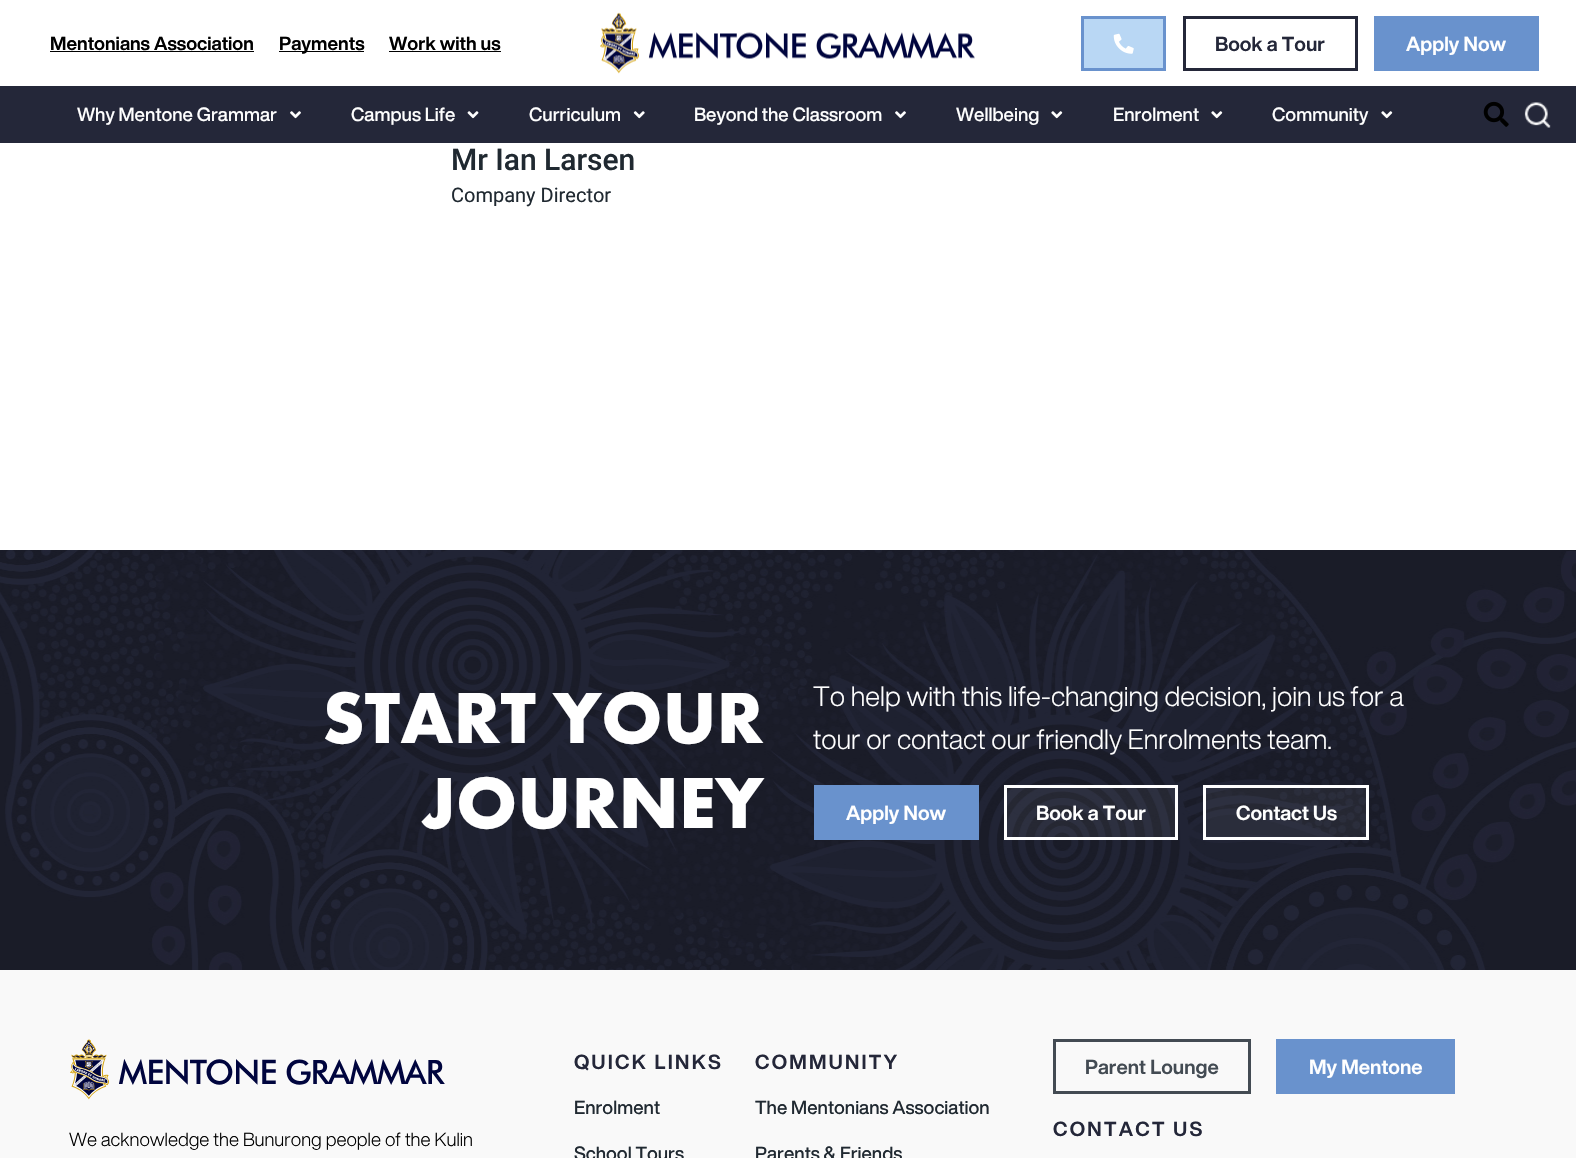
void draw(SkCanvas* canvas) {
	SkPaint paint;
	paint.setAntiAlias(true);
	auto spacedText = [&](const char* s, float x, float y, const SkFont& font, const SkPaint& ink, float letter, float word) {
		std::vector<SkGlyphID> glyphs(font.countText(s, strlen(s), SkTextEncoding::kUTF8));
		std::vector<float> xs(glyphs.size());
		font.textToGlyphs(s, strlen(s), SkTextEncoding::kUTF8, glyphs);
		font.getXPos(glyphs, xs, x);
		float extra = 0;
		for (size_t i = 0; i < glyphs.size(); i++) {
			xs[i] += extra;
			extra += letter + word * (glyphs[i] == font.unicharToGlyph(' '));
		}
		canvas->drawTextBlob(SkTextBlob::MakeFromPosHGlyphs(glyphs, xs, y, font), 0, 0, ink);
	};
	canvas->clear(0xffffffff);
	SkFont f1(fontMgr->matchFamilyStyle("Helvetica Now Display", SkFontStyle::Bold()), 18.75);
	f1.setSubpixel(true);
	paint.setColor(0xff000000);
	canvas->drawString("Mentonians Association", 50, 50, f1, paint);
	canvas->drawRect(SkRect::MakeXYWH(50, 51, 204, 1), paint);
	canvas->drawRect(SkRect::MakeXYWH(279, 51, 85, 1), paint);
	canvas->drawString("Payments", 279, 50, f1, paint);
	canvas->drawString("Work with us", 389, 50, f1, paint);
	canvas->drawRect(SkRect::MakeXYWH(389, 51, 112, 1), paint);
	canvas->drawImageRect(SkImages::DeferredFromEncodedData(SkData::MakeFromFileName("img1.png")), SkRect::MakeXYWH(600, 12, 375, 62), SkSamplingOptions());
	paint.setColor(0xffb9d7f4);
	canvas->drawRect(SkRect::MakeXYWH(1082.5, 17.5, 82, 52), paint);
	paint.setStroke(true);
	paint.setStrokeWidth(3);
	paint.setColor(0xff6992cd);
	canvas->drawRect(SkRect::MakeXYWH(1082.5, 17.5, 82, 52), paint);
	canvas->drawImageRect(SkImages::DeferredFromEncodedData(SkData::MakeFromFileName("img2.png")), SkRect::MakeXYWH(1113, 33, 21, 21), SkSamplingOptions());
	paint.setColor(0xff242739);
	canvas->drawRect(SkRect::MakeXYWH(1184.5, 17.5, 172, 52), paint);
	SkFont f2(fontMgr->matchFamilyStyle("Helvetica Now Display", SkFontStyle::Bold()), 20);
	f2.setSubpixel(true);
	paint.setStroke(false);
	canvas->drawString("Book a Tour", 1215, 51, f2, paint);
	paint.setColor(0xff6992cd);
	canvas->drawRect(SkRect::MakeXYWH(1374, 16, 165, 55), paint);
	paint.setColor(0xffffffff);
	canvas->drawString("Apply Now", 1406, 51, f2, paint);
	paint.setColor(0xff242739);
	canvas->drawRect(SkRect::MakeXYWH(0, 86, 1576, 57), paint);
	SkFont f3(fontMgr->matchFamilyStyle("Helvetica Now Display", SkFontStyle(500, SkFontStyle::kNormal_Width, SkFontStyle::kUpright_Slant)), 18.75);
	f3.setSubpixel(true);
	paint.setColor(0xffffffff);
	canvas->drawString("Why Mentone Grammar", 77, 121, f3, paint);
	canvas->drawImageRect(SkImages::DeferredFromEncodedData(SkData::MakeFromFileName("img3.png")), SkRect::MakeXYWH(290, 111, 11, 8), SkSamplingOptions());
	canvas->drawString("Campus Life", 351, 121, f3, paint);
	canvas->drawImageRect(SkImages::DeferredFromEncodedData(SkData::MakeFromFileName("img4.png")), SkRect::MakeXYWH(467, 111, 12, 8), SkSamplingOptions());
	canvas->drawString("Curriculum", 529, 121, f3, paint);
	canvas->drawImageRect(SkImages::DeferredFromEncodedData(SkData::MakeFromFileName("img5.png")), SkRect::MakeXYWH(633, 111, 12, 8), SkSamplingOptions());
	canvas->drawString("Beyond the Classroom", 694, 121, f3, paint);
	canvas->drawImageRect(SkImages::DeferredFromEncodedData(SkData::MakeFromFileName("img3.png")), SkRect::MakeXYWH(895, 111, 11, 8), SkSamplingOptions());
	canvas->drawString("Wellbeing", 956, 121, f3, paint);
	canvas->drawImageRect(SkImages::DeferredFromEncodedData(SkData::MakeFromFileName("img6.png")), SkRect::MakeXYWH(1051, 111, 12, 8), SkSamplingOptions());
	canvas->drawString("Enrolment", 1113, 121, f3, paint);
	canvas->drawImageRect(SkImages::DeferredFromEncodedData(SkData::MakeFromFileName("img6.png")), SkRect::MakeXYWH(1211, 111, 12, 8), SkSamplingOptions());
	canvas->drawString("Community", 1272, 121, f3, paint);
	canvas->drawImageRect(SkImages::DeferredFromEncodedData(SkData::MakeFromFileName("img6.png")), SkRect::MakeXYWH(1381, 111, 12, 8), SkSamplingOptions());
	canvas->drawImageRect(SkImages::DeferredFromEncodedData(SkData::MakeFromFileName("img7.png")), SkRect::MakeXYWH(1483, 101, 26, 26), SkSamplingOptions());
	canvas->drawImageRect(SkImages::DeferredFromEncodedData(SkData::MakeFromFileName("img8.png")), SkRect::MakeXYWH(1524, 102, 27, 26), SkSamplingOptions());
	SkFont f4(fontMgr->matchFamilyStyle("Roboto", SkFontStyle(500, SkFontStyle::kNormal_Width, SkFontStyle::kUpright_Slant)), 30);
	f4.setSubpixel(true);
	paint.setColor(0xff202931);
	canvas->drawString("Mr Ian Larsen", 451, 170, f4, paint);
	SkFont f5(fontMgr->matchFamilyStyle("Roboto", SkFontStyle::Normal()), 20);
	f5.setSubpixel(true);
	canvas->drawString("Company Director", 451, 202, f5, paint);
	canvas->drawImageRect(SkImages::DeferredFromEncodedData(SkData::MakeFromFileName("img9.png")), SkRect::MakeXYWH(0, 550, 1576, 420), SkSamplingOptions());
	SkFont f6(fontMgr->matchFamilyStyle("Futura PT", SkFontStyle::Bold()), 75);
	f6.setSubpixel(true);
	paint.setColor(0xffffffff);
	canvas->drawString("START YOUR", 322, 743, f6, paint);
	canvas->drawString("JOURNEY", 421, 828, f6, paint);
	SkFont f7(fontMgr->matchFamilyStyle("Helvetica Now Display", SkFontStyle(300, SkFontStyle::kNormal_Width, SkFontStyle::kUpright_Slant)), 27.5);
	f7.setSubpixel(true);
	canvas->drawString("To help with this life-changing decision, join us for a", 813, 706, f7, paint);
	canvas->drawString("tour or contact our friendly Enrolments team.", 813, 749, f7, paint);
	paint.setColor(0xff6992cd);
	canvas->drawRect(SkRect::MakeXYWH(814, 785, 165, 55), paint);
	paint.setColor(0xffffffff);
	canvas->drawString("Apply Now", 846, 820, f2, paint);
	paint.setColor(0x0dffffff);
	canvas->drawRect(SkRect::MakeXYWH(1005.5, 786.5, 171, 52), paint);
	paint.setStroke(true);
	paint.setColor(0xffffffff);
	canvas->drawRect(SkRect::MakeXYWH(1005.5, 786.5, 171, 52), paint);
	paint.setStroke(false);
	canvas->drawString("Book a Tour", 1036, 820, f2, paint);
	paint.setColor(0x0dffffff);
	canvas->drawRect(SkRect::MakeXYWH(1204.5, 786.5, 163, 52), paint);
	paint.setStroke(true);
	paint.setColor(0xffffffff);
	canvas->drawRect(SkRect::MakeXYWH(1204.5, 786.5, 163, 52), paint);
	paint.setStroke(false);
	canvas->drawString("Contact Us", 1236, 820, f2, paint);
	paint.setColor(0xfff9f9f9);
	canvas->drawRect(SkRect::MakeXYWH(0, 970, 1576, 188), paint);
	paint.setColor(0xff242739);
	spacedText("QUICK LINKS", 574, 1069, f2, paint, 2.25, 0);
	paint.setColor(0xff202931);
	canvas->drawString("Enrolment", 574, 1114, f3, paint);
	canvas->drawString("School Tours", 574, 1160, f3, paint);
	paint.setColor(0xff242739);
	spacedText("COMMUNITY", 755, 1069, f2, paint, 2.25, 0);
	paint.setColor(0xff202931);
	canvas->drawString("The Mentonians Association", 755, 1114, f3, paint);
	canvas->drawString("Parents & Friends", 755, 1160, f3, paint);
	paint.setStroke(true);
	paint.setColor(0xff434b53);
	canvas->drawRect(SkRect::MakeXYWH(1054.5, 1040.5, 195, 52), paint);
	paint.setStroke(false);
	canvas->drawString("Parent Lounge", 1085, 1074, f2, paint);
	paint.setColor(0xff6992cd);
	canvas->drawRect(SkRect::MakeXYWH(1276, 1039, 179, 55), paint);
	paint.setColor(0xffffffff);
	canvas->drawString("My Mentone", 1309, 1074, f2, paint);
	paint.setColor(0xff242739);
	spacedText("CONTACT US", 1053, 1136, f2, paint, 2.25, 0);
	canvas->drawImageRect(SkImages::DeferredFromEncodedData(SkData::MakeFromFileName("img10.png")), SkRect::MakeXYWH(70, 1039, 375, 61), SkSamplingOptions());
	SkFont f8(fontMgr->matchFamilyStyle("Helvetica Now Display", SkFontStyle(300, SkFontStyle::kNormal_Width, SkFontStyle::kUpright_Slant)), 18.75);
	f8.setSubpixel(true);
	paint.setColor(0xff000000);
	canvas->drawString("We acknowledge the Bunurong people of the Kulin", 69, 1146, f8, paint);
}
